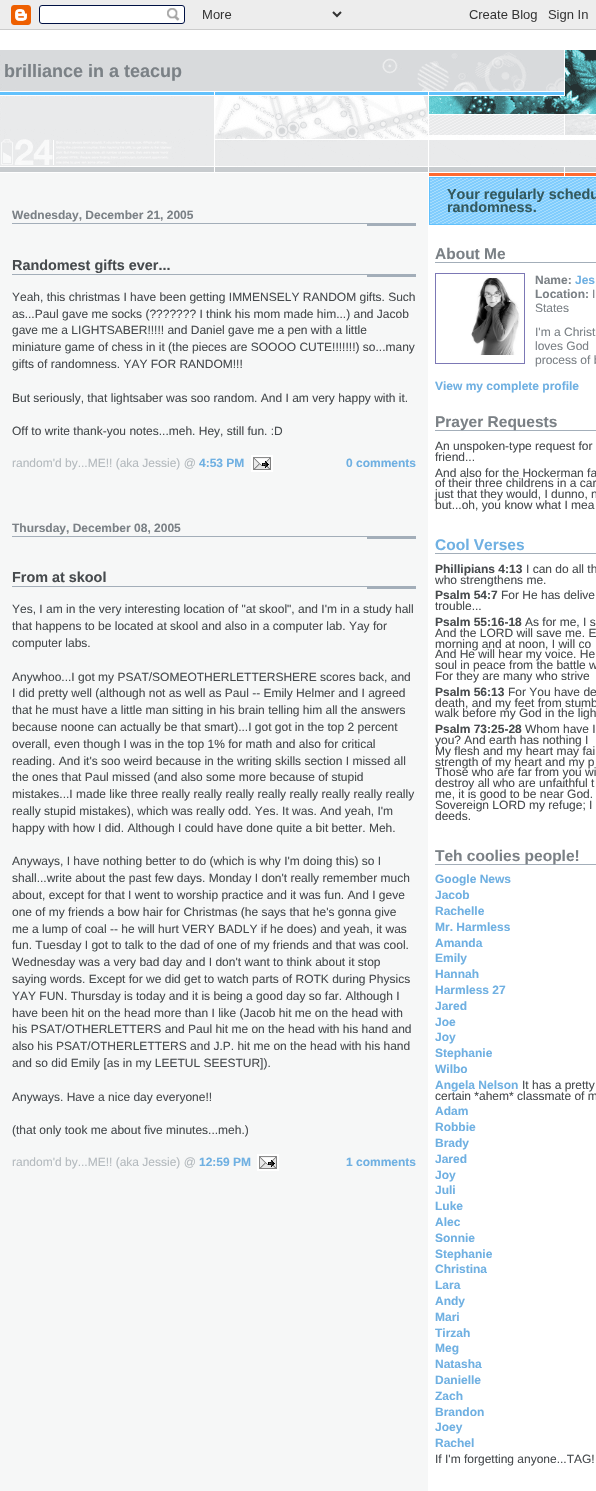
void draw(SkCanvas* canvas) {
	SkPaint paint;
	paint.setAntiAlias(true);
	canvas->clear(0xffffffff);
	canvas->drawImageRect(SkImages::DeferredFromEncodedData(SkData::MakeFromFileName("img1.png")), SkRect::MakeXYWH(0, 0, 596, 30), SkSamplingOptions());
	canvas->drawImageRect(SkImages::DeferredFromEncodedData(SkData::MakeFromFileName("img2.png")), SkRect::MakeXYWH(0, 173, 428, 1318), SkSamplingOptions());
	canvas->drawImageRect(SkImages::DeferredFromEncodedData(SkData::MakeFromFileName("img3.png")), SkRect::MakeXYWH(0, 50, 596, 122), SkSamplingOptions());
	SkFont f1(fontMgr->matchFamilyStyle("Liberation Sans", SkFontStyle::Bold()), 18);
	f1.setSubpixel(true);
	paint.setColor(0xff7b8186);
	canvas->drawString("brilliance in a teacup", 4, 77, f1, paint);
	canvas->drawImageRect(SkImages::DeferredFromEncodedData(SkData::MakeFromFileName("img4.png")), SkRect::MakeXYWH(12, 223, 404, 3), SkSamplingOptions());
	SkFont f2(fontMgr->matchFamilyStyle("Liberation Sans", SkFontStyle::Bold()), 12);
	f2.setSubpixel(true);
	canvas->drawString("Wednesday, December 21, 2005", 12, 219, f2, paint);
	canvas->drawImageRect(SkImages::DeferredFromEncodedData(SkData::MakeFromFileName("img4.png")), SkRect::MakeXYWH(12, 274, 404, 3), SkSamplingOptions());
	SkFont f3(fontMgr->matchFamilyStyle("Liberation Sans", SkFontStyle::Bold()), 14.4);
	f3.setSubpixel(true);
	paint.setColor(0xff474b4e);
	canvas->drawString("Randomest gifts ever...", 12, 270, f3, paint);
	SkFont f4(fontMgr->matchFamilyStyle("Liberation Sans", SkFontStyle::Normal()), 12);
	f4.setSubpixel(true);
	canvas->drawString("Yeah, this christmas I have been getting IMMENSELY RANDOM gifts. Such", 12, 301, f4, paint);
	canvas->drawString("as...Paul gave me socks (?\077?\077?\077? I think his mom made him...) and Jacob", 12, 318, f4, paint);
	canvas->drawString("gave me a LIGHTSABER!!!!! and Daniel gave me a pen with a little", 12, 334, f4, paint);
	canvas->drawString("miniature game of chess in it (the pieces are SOOOO CUTE!!!!!!!) so...many", 12, 351, f4, paint);
	canvas->drawString("gifts of randomness. YAY FOR RANDOM!!!", 12, 368, f4, paint);
	canvas->drawString("But seriously, that lightsaber was soo random. And I am very happy with it.", 12, 402, f4, paint);
	canvas->drawString("Off to write thank-you notes...meh. Hey, still fun. :D", 12, 435, f4, paint);
	paint.setColor(0xffffffff);
	canvas->drawRect(SkRect::MakeXYWH(251, 455, 22, 17), paint);
	paint.setColor(0xffb4babe);
	canvas->drawString("random'd by...ME!! (aka Jessie) @", 12, 467, f4, paint);
	paint.setColor(0xff6fb0e2);
	canvas->drawString("4:53 PM", 199, 467, f2, paint);
	canvas->drawImageRect(SkImages::DeferredFromEncodedData(SkData::MakeFromFileName("img5.png")), SkRect::MakeXYWH(253, 457, 18, 13), SkSamplingOptions());
	canvas->drawString("0 comments", 346, 467, f2, paint);
	canvas->drawImageRect(SkImages::DeferredFromEncodedData(SkData::MakeFromFileName("img4.png")), SkRect::MakeXYWH(12, 536, 404, 3), SkSamplingOptions());
	paint.setColor(0xff7b8186);
	canvas->drawString("Thursday, December 08, 2005", 12, 532, f2, paint);
	canvas->drawImageRect(SkImages::DeferredFromEncodedData(SkData::MakeFromFileName("img4.png")), SkRect::MakeXYWH(12, 586, 404, 3), SkSamplingOptions());
	paint.setColor(0xff474b4e);
	canvas->drawString("From at skool", 12, 582, f3, paint);
	canvas->drawString("Yes, I am in the very interesting location of \"at skool\", and I'm in a study hall", 12, 613, f4, paint);
	canvas->drawString("that happens to be located at skool and also in a computer lab. Yay for", 12, 630, f4, paint);
	canvas->drawString("computer labs.", 12, 647, f4, paint);
	canvas->drawString("Anywhoo...I got my PSAT/SOMEOTHERLETTERSHERE scores back, and", 12, 681, f4, paint);
	canvas->drawString("I did pretty well (although not as well as Paul -- Emily Helmer and I agreed", 12, 697, f4, paint);
	canvas->drawString("that he must have a little man sitting in his brain telling him all the answers", 12, 714, f4, paint);
	canvas->drawString("because noone can actually be that smart)...I got got in the top 2 percent", 12, 731, f4, paint);
	canvas->drawString("overall, even though I was in the top 1% for math and also for critical", 12, 748, f4, paint);
	canvas->drawString("reading. And it's soo weird because in the writing skills section I missed all", 12, 765, f4, paint);
	canvas->drawString("the ones that Paul missed (and also some more because of stupid", 12, 781, f4, paint);
	canvas->drawString("mistakes...I made like three really really really really really really really really", 12, 798, f4, paint);
	canvas->drawString("really stupid mistakes), which was really odd. Yes. It was. And yeah, I'm", 12, 815, f4, paint);
	canvas->drawString("happy with how I did. Although I could have done quite a bit better. Meh.", 12, 832, f4, paint);
	canvas->drawString("Anyways, I have nothing better to do (which is why I'm doing this) so I", 12, 865, f4, paint);
	canvas->drawString("shall...write about the past few days. Monday I don't really remember much", 12, 882, f4, paint);
	canvas->drawString("about, except for that I went to worship practice and it was fun. And I geve", 12, 899, f4, paint);
	canvas->drawString("one of my friends a bow hair for Christmas (he says that he's gonna give", 12, 916, f4, paint);
	canvas->drawString("me a lump of coal -- he will hurt VERY BADLY if he does) and yeah, it was", 12, 933, f4, paint);
	canvas->drawString("fun. Tuesday I got to talk to the dad of one of my friends and that was cool.", 12, 949, f4, paint);
	canvas->drawString("Wednesday was a very bad day and I don't want to think about it stop", 12, 966, f4, paint);
	canvas->drawString("saying words. Except for we did get to watch parts of ROTK during Physics", 12, 983, f4, paint);
	canvas->drawString("YAY FUN. Thursday is today and it is being a good day so far. Although I", 12, 1000, f4, paint);
	canvas->drawString("have been hit on the head more than I like (Jacob hit me on the head with", 12, 1017, f4, paint);
	canvas->drawString("his PSAT/OTHERLETTERS and Paul hit me on the head with his hand and", 12, 1033, f4, paint);
	canvas->drawString("also his PSAT/OTHERLETTERS and J.P. hit me on the head with his hand", 12, 1050, f4, paint);
	canvas->drawString("and so did Emily [as in my LEETUL SEESTUR]).", 12, 1067, f4, paint);
	canvas->drawString("Anyways. Have a nice day everyone!!", 12, 1101, f4, paint);
	canvas->drawString("(that only took me about five minutes...meh.)", 12, 1134, f4, paint);
	paint.setColor(0xffffffff);
	canvas->drawRect(SkRect::MakeXYWH(257, 1154, 22, 17), paint);
	paint.setColor(0xffb4babe);
	canvas->drawString("random'd by...ME!! (aka Jessie) @", 12, 1166, f4, paint);
	paint.setColor(0xff6fb0e2);
	canvas->drawString("12:59 PM", 199, 1166, f2, paint);
	canvas->drawImageRect(SkImages::DeferredFromEncodedData(SkData::MakeFromFileName("img5.png")), SkRect::MakeXYWH(259, 1156, 18, 13), SkSamplingOptions());
	canvas->drawString("1 comments", 346, 1166, f2, paint);
	canvas->drawImageRect(SkImages::DeferredFromEncodedData(SkData::MakeFromFileName("img6.png")), SkRect::MakeXYWH(429, 173, 167, 3), SkSamplingOptions());
	canvas->drawImageRect(SkImages::DeferredFromEncodedData(SkData::MakeFromFileName("img7.png")), SkRect::MakeXYWH(430, 178, 166, 46), SkSamplingOptions());
	paint.setStroke(true);
	paint.setStrokeWidth(1);
	paint.setColor(0xff62c1fc);
	canvas->drawRect(SkRect::MakeXYWH(429.5, 177.5, 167, 47), paint);
	paint.setStroke(false);
	paint.setColor(0xff33595e);
	canvas->drawString("Your regularly schedu", 447, 199, f3, paint);
	canvas->drawString("randomness.", 447, 212, f3, paint);
	paint.setColor(0xffa3aeb9);
	canvas->drawRect(SkRect::MakeXYWH(435, 262, 161, 1), paint);
	SkFont f5(fontMgr->matchFamilyStyle("Liberation Sans", SkFontStyle::Bold()), 15.5);
	f5.setSubpixel(true);
	paint.setColor(0xff7b8186);
	canvas->drawString("About Me", 435, 259, f5, paint);
	paint.setStroke(true);
	paint.setColor(0xff7c78b5);
	canvas->drawRect(SkRect::MakeXYWH(435.5, 273.5, 89, 90), paint);
	canvas->drawImageRect(SkImages::DeferredFromEncodedData(SkData::MakeFromFileName("img8.png")), SkRect::MakeXYWH(471, 278, 49, 77), SkSamplingOptions());
	paint.setStroke(false);
	paint.setColor(0xff7b8186);
	canvas->drawString("Name:", 535, 284, f2, paint);
	paint.setColor(0xff6fb0e2);
	canvas->drawString("Jes", 575, 284, f2, paint);
	paint.setColor(0xff7b8186);
	canvas->drawString("Location:", 535, 298, f2, paint);
	canvas->drawString("I", 592, 298, f4, paint);
	canvas->drawString("States", 535, 312, f4, paint);
	canvas->drawString("I'm a Christ", 535, 336, f4, paint);
	canvas->drawString("loves God", 535, 350, f4, paint);
	canvas->drawString("process of b", 535, 364, f4, paint);
	paint.setColor(0xff6fb0e2);
	canvas->drawString("View my complete profile", 435, 390, f2, paint);
	paint.setColor(0xffa3aeb9);
	canvas->drawRect(SkRect::MakeXYWH(435, 430, 161, 1), paint);
	paint.setColor(0xff7b8186);
	canvas->drawString("Prayer Requests", 435, 427, f5, paint);
	paint.setColor(0xff474b4e);
	canvas->drawString("An unspoken-type request for", 435, 450, f4, paint);
	canvas->drawString("friend...", 435, 461, f4, paint);
	canvas->drawString("And also for the Hockerman fa", 435, 477, f4, paint);
	canvas->drawString("of their three childrens in a car", 435, 487, f4, paint);
	canvas->drawString("just that they would, I dunno, n", 435, 498, f4, paint);
	canvas->drawString("but...oh, you know what I mea", 435, 509, f4, paint);
	paint.setColor(0xffa3aeb9);
	canvas->drawRect(SkRect::MakeXYWH(435, 553, 161, 1), paint);
	paint.setColor(0xff6fb0e2);
	canvas->drawString("Cool Verses", 435, 550, f5, paint);
	paint.setColor(0xff474b4e);
	canvas->drawString("Phillipians 4:13", 435, 573, f2, paint);
	canvas->drawString("I can do all th", 526, 573, f4, paint);
	canvas->drawString("who strengthens me.", 435, 584, f4, paint);
	canvas->drawString("Psalm 54:7", 435, 599, f2, paint);
	canvas->drawString("For He has delive", 501, 599, f4, paint);
	canvas->drawString("trouble...", 435, 610, f4, paint);
	canvas->drawString("Psalm 55:16-18", 435, 626, f2, paint);
	canvas->drawString("As for me, I s", 525, 626, f4, paint);
	canvas->drawString("And the LORD will save me. E", 435, 637, f4, paint);
	canvas->drawString("morning and at noon, I will co", 435, 648, f4, paint);
	canvas->drawString("And He will hear my voice. He", 435, 658, f4, paint);
	canvas->drawString("soul in peace from the battle w", 435, 669, f4, paint);
	canvas->drawString("For they are many who strive", 435, 680, f4, paint);
	canvas->drawString("Psalm 56:13", 435, 696, f2, paint);
	canvas->drawString("For You have de", 508, 696, f4, paint);
	canvas->drawString("death, and my feet from stumb", 435, 707, f4, paint);
	canvas->drawString("walk before my God in the ligh", 435, 717, f4, paint);
	canvas->drawString("Psalm 73:25-28", 435, 733, f2, paint);
	canvas->drawString("Whom have I", 525, 733, f4, paint);
	canvas->drawString("you? And earth has nothing I", 435, 744, f4, paint);
	canvas->drawString("My flesh and my heart may fai", 435, 755, f4, paint);
	canvas->drawString("strength of my heart and my p", 435, 766, f4, paint);
	canvas->drawString("Those who are far from you wi", 435, 776, f4, paint);
	canvas->drawString("destroy all who are unfaithful t", 435, 787, f4, paint);
	canvas->drawString("me, it is good to be near God.", 435, 798, f4, paint);
	canvas->drawString("Sovereign LORD my refuge; I", 435, 809, f4, paint);
	canvas->drawString("deeds.", 435, 820, f4, paint);
	paint.setColor(0xffa3aeb9);
	canvas->drawRect(SkRect::MakeXYWH(435, 864, 161, 1), paint);
	paint.setColor(0xff7b8186);
	canvas->drawString("Teh coolies people!", 435, 861, f5, paint);
	paint.setColor(0xff6fb0e2);
	canvas->drawString("Google News", 435, 883, f2, paint);
	canvas->drawString("Jacob", 435, 899, f2, paint);
	canvas->drawString("Rachelle", 435, 915, f2, paint);
	canvas->drawString("Mr. Harmless", 435, 931, f2, paint);
	canvas->drawString("Amanda", 435, 947, f2, paint);
	canvas->drawString("Emily", 435, 962, f2, paint);
	canvas->drawString("Hannah", 435, 978, f2, paint);
	canvas->drawString("Harmless 27", 435, 994, f2, paint);
	canvas->drawString("Jared", 435, 1010, f2, paint);
	canvas->drawString("Joe", 435, 1026, f2, paint);
	canvas->drawString("Joy", 435, 1041, f2, paint);
	canvas->drawString("Stephanie", 435, 1057, f2, paint);
	canvas->drawString("Wilbo", 435, 1073, f2, paint);
	canvas->drawString("Angela Nelson", 435, 1089, f2, paint);
	paint.setColor(0xff474b4e);
	canvas->drawString("It has a pretty", 522, 1089, f4, paint);
	canvas->drawString("certain *ahem* classmate of m", 435, 1100, f4, paint);
	paint.setColor(0xff6fb0e2);
	canvas->drawString("Adam", 435, 1115, f2, paint);
	canvas->drawString("Robbie", 435, 1131, f2, paint);
	canvas->drawString("Brady", 435, 1147, f2, paint);
	canvas->drawString("Jared", 435, 1163, f2, paint);
	canvas->drawString("Joy", 435, 1179, f2, paint);
	canvas->drawString("Juli", 435, 1194, f2, paint);
	canvas->drawString("Luke", 435, 1210, f2, paint);
	canvas->drawString("Alec", 435, 1226, f2, paint);
	canvas->drawString("Sonnie", 435, 1242, f2, paint);
	canvas->drawString("Stephanie", 435, 1258, f2, paint);
	canvas->drawString("Christina", 435, 1273, f2, paint);
	canvas->drawString("Lara", 435, 1289, f2, paint);
	canvas->drawString("Andy", 435, 1305, f2, paint);
	canvas->drawString("Mari", 435, 1321, f2, paint);
	canvas->drawString("Tirzah", 435, 1337, f2, paint);
	canvas->drawString("Meg", 435, 1352, f2, paint);
	canvas->drawString("Natasha", 435, 1368, f2, paint);
	canvas->drawString("Danielle", 435, 1384, f2, paint);
	canvas->drawString("Zach", 435, 1400, f2, paint);
	canvas->drawString("Brandon", 435, 1416, f2, paint);
	canvas->drawString("Joey", 435, 1431, f2, paint);
	canvas->drawString("Rachel", 435, 1447, f2, paint);
	paint.setColor(0xff474b4e);
	canvas->drawString("If I'm forgetting anyone...TAG!", 435, 1463, f4, paint);
}
